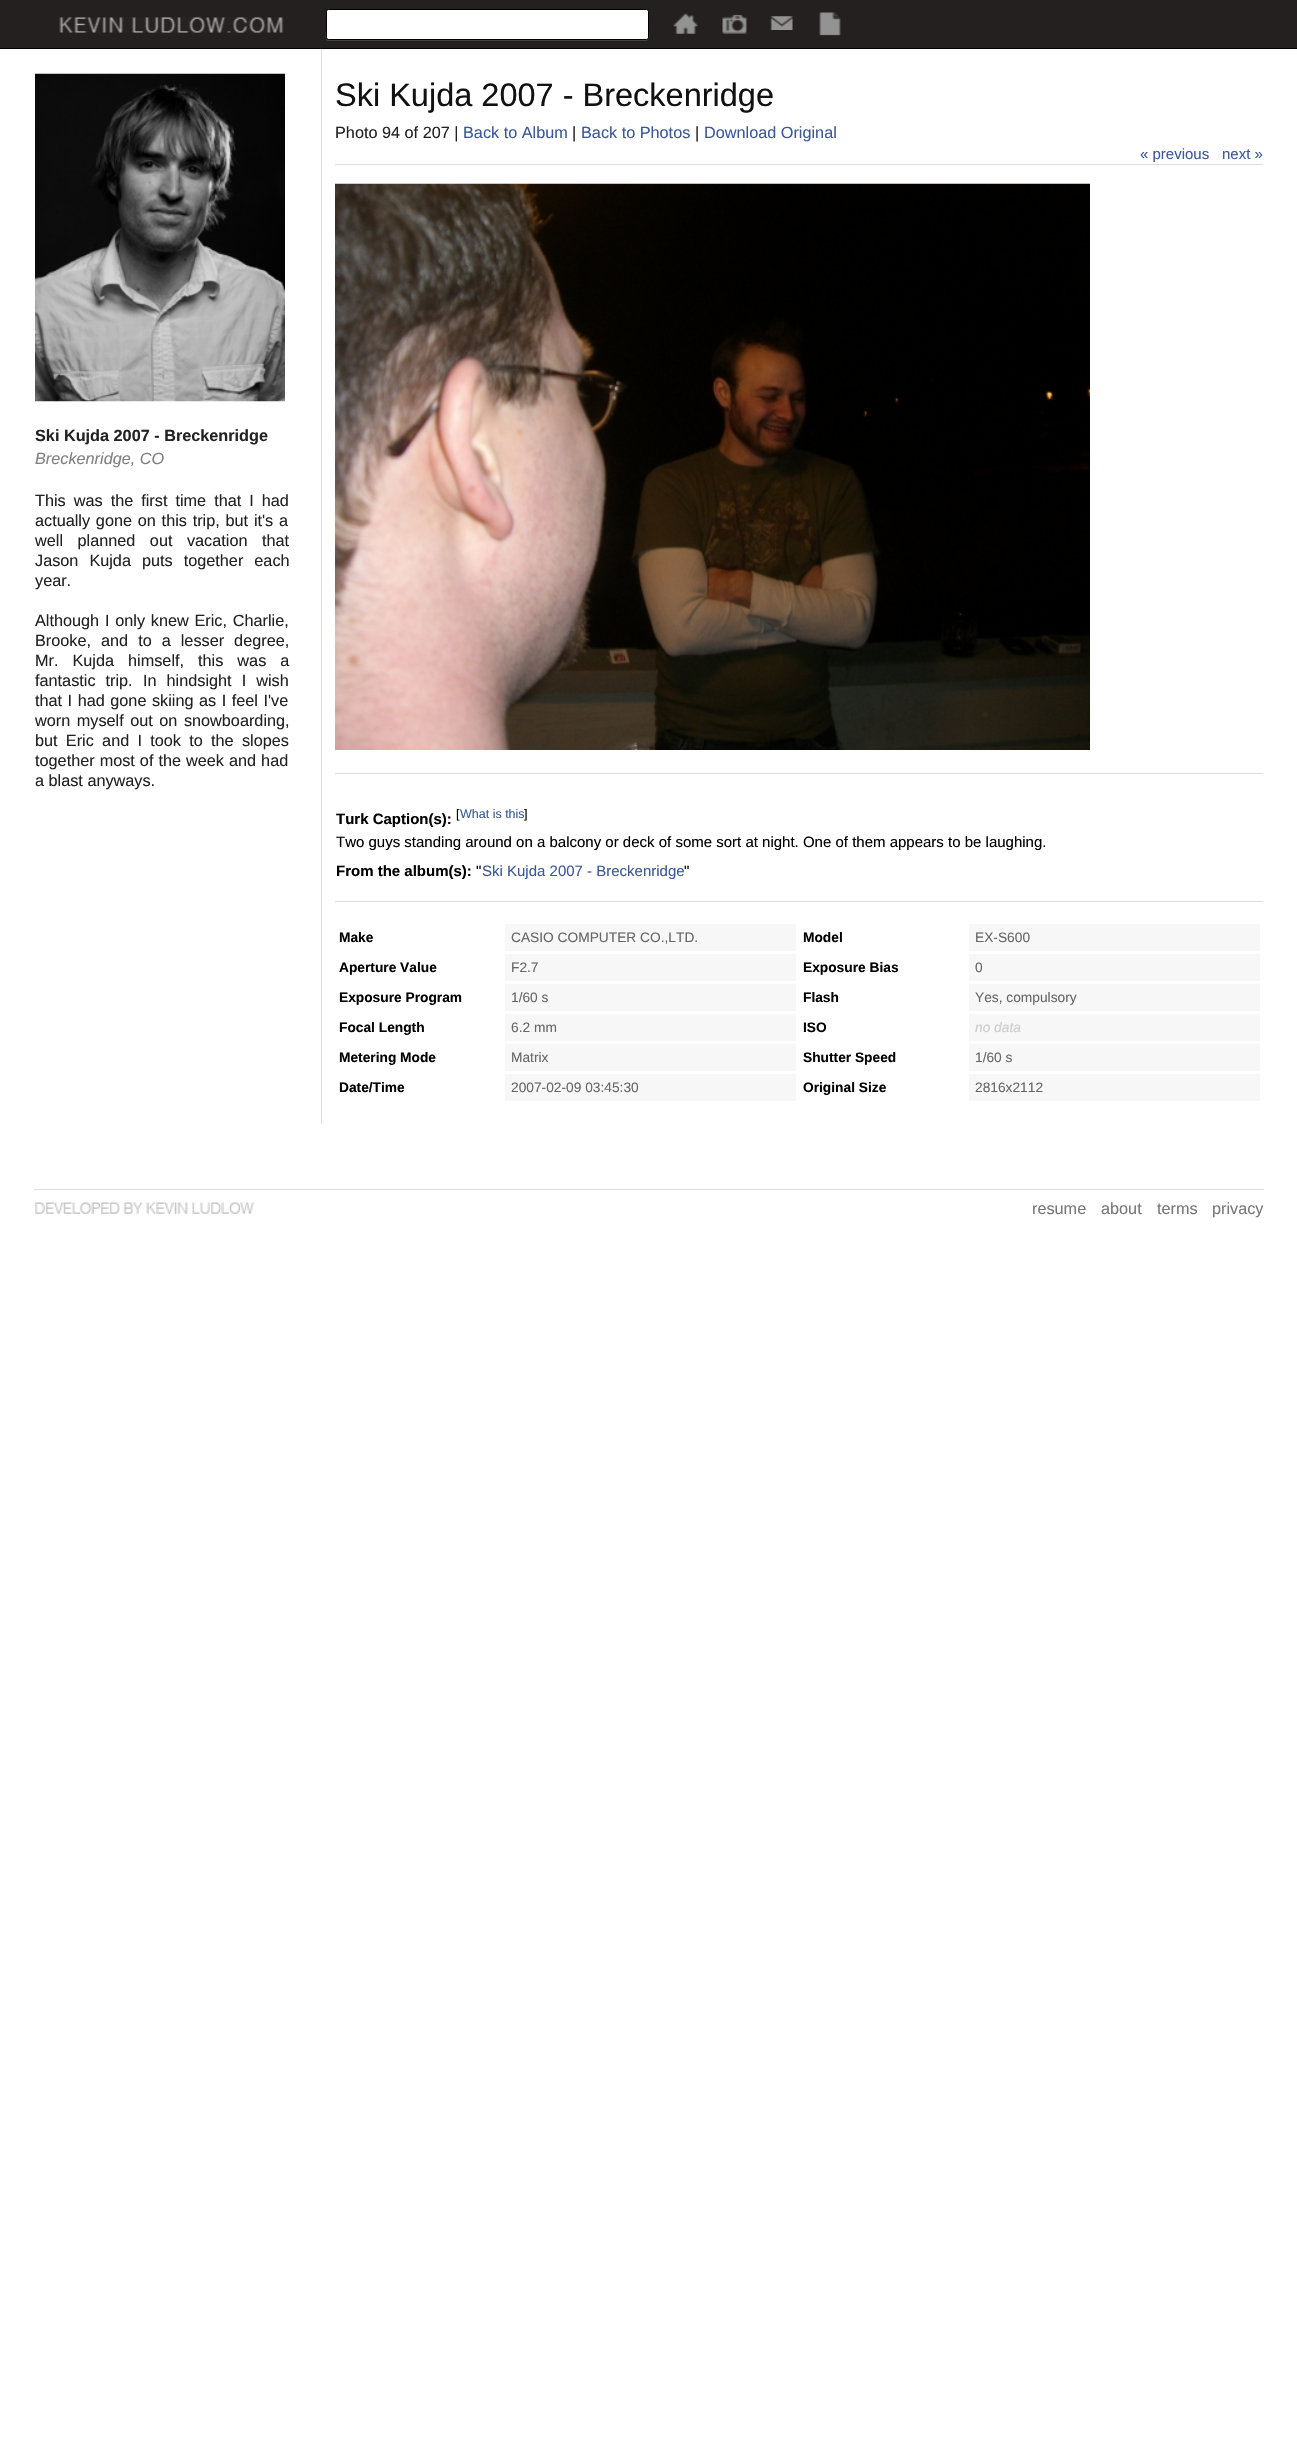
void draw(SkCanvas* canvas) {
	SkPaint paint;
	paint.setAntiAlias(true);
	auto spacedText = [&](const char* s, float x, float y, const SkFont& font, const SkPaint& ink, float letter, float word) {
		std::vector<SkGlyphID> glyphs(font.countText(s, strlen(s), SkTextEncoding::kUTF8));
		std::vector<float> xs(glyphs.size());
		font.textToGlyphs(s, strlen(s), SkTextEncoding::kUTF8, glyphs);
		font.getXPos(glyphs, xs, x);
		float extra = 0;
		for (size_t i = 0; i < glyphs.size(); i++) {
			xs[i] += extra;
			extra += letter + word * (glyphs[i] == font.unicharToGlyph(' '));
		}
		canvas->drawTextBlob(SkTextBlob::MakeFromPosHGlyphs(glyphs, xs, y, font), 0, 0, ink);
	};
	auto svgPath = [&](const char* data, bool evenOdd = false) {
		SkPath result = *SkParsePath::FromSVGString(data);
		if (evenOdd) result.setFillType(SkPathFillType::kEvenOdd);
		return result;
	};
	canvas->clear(0xffffffff);
	paint.setColor(0xff252020);
	canvas->drawRect(SkRect::MakeXYWH(0, 0, 1297, 48), paint);
	paint.setColor(0xff040000);
	canvas->drawRect(SkRect::MakeXYWH(0, 48, 1297, 1), paint);
	canvas->drawImageRect(SkImages::DeferredFromEncodedData(SkData::MakeFromFileName("img1.png")), SkRect::MakeXYWH(59, 17, 225, 16), SkSamplingOptions());
	paint.setColor(0xff444444);
	canvas->drawPath(svgPath("M326 11V30C326 32 324 41 328 41H646C651 41 649 32 649 30V11V38C649 39 648 40 646 40H329C327 40 326 39 326 38Z"), paint);
	paint.setColor(0xffffffff);
	canvas->drawRoundRect(SkRect::MakeXYWH(326.5, 9.5, 322, 30), 2, 2, paint);
	paint.setStroke(true);
	paint.setStrokeWidth(1);
	paint.setColor(0xff000000);
	canvas->drawRoundRect(SkRect::MakeXYWH(326.5, 9.5, 322, 30), 2, 2, paint);
	canvas->drawImageRect(SkImages::DeferredFromEncodedData(SkData::MakeFromFileName("img2.png")), SkRect::MakeXYWH(673, 13, 25, 21), SkSamplingOptions());
	canvas->drawImageRect(SkImages::DeferredFromEncodedData(SkData::MakeFromFileName("img3.png")), SkRect::MakeXYWH(722, 14, 25, 20), SkSamplingOptions());
	canvas->drawImageRect(SkImages::DeferredFromEncodedData(SkData::MakeFromFileName("img4.png")), SkRect::MakeXYWH(770, 16, 23, 14), SkSamplingOptions());
	canvas->drawImageRect(SkImages::DeferredFromEncodedData(SkData::MakeFromFileName("img5.png")), SkRect::MakeXYWH(819, 12, 22, 24), SkSamplingOptions());
	paint.setStroke(false);
	paint.setColor(0xffdddddd);
	canvas->drawRect(SkRect::MakeXYWH(321, 49, 1, 1075), paint);
	canvas->drawImageRect(SkImages::DeferredFromEncodedData(SkData::MakeFromFileName("img6.png")), SkRect::MakeXYWH(35, 73, 250, 329), SkSamplingOptions());
	SkFont f1(fontMgr->matchFamilyStyle("Liberation Sans", SkFontStyle::Bold()), 16.25);
	f1.setSubpixel(true);
	paint.setColor(0xff222222);
	canvas->drawString("Ski Kujda 2007 - Breckenridge", 35, 441, f1, paint);
	SkFont f2(fontMgr->matchFamilyStyle("Liberation Sans", SkFontStyle::Italic()), 16.25);
	f2.setSubpixel(true);
	paint.setColor(0xff808080);
	canvas->drawString("Breckenridge, CO", 35, 464, f2, paint);
	SkFont f3(fontMgr->matchFamilyStyle("Liberation Sans", SkFontStyle::Normal()), 16.25);
	f3.setSubpixel(true);
	paint.setColor(0xff222222);
	spacedText("This was the first time that I had", 35, 506, f3, paint, 0, 3.5);
	spacedText("actually gone on this trip, but it's a", 35, 526, f3, paint, 0, 1.25);
	spacedText("well planned out vacation that", 35, 546, f3, paint, 0, 10);
	spacedText("Jason Kujda puts together each", 35, 566, f3, paint, 0, 6.5);
	canvas->drawString("year.", 35, 586, f3, paint);
	spacedText("Although I only knew Eric, Charlie,", 35, 626, f3, paint, 0, 1.25);
	spacedText("Brooke, and to a lesser degree,", 35, 646, f3, paint, 0, 5.5);
	spacedText("Mr. Kujda himself, this was a", 35, 666, f3, paint, 0, 9.5);
	spacedText("fantastic trip.", 35, 686, f3, paint, 0, 5.5);
	spacedText("In hindsight I wish", 143, 686, f3, paint, 0, 5.5);
	spacedText("that I had gone skiing as I feel I've", 35, 706, f3, paint, 0, 1);
	spacedText("worn myself out on snowboarding,", 35, 726, f3, paint, 0, 2);
	spacedText("but Eric and I took to the slopes", 35, 746, f3, paint, 0, 3.75);
	spacedText("together most of the week and had", 35, 766, f3, paint, 0, 0.5);
	canvas->drawString("a blast anyways.", 35, 786, f3, paint);
	paint.setColor(0xffdddddd);
	canvas->drawRect(SkRect::MakeXYWH(335, 164, 928, 1), paint);
	SkFont f4(fontMgr->matchFamilyStyle("Liberation Sans", SkFontStyle::Normal()), 32.5);
	f4.setSubpixel(true);
	paint.setColor(0xff111111);
	canvas->drawString("Ski Kujda 2007 - Breckenridge", 335, 106, f4, paint);
	paint.setColor(0xff222222);
	canvas->drawString("Photo 94 of 207 |", 335, 138, f3, paint);
	paint.setColor(0xff3b5998);
	canvas->drawString("Back to Album", 463, 138, f3, paint);
	paint.setColor(0xff222222);
	canvas->drawString("|", 572, 138, f3, paint);
	paint.setColor(0xff3b5998);
	canvas->drawString("Back to Photos", 581, 138, f3, paint);
	paint.setColor(0xff222222);
	canvas->drawString("|", 695, 138, f3, paint);
	paint.setColor(0xff3b5998);
	canvas->drawString("Download Original", 704, 138, f3, paint);
	SkFont f5(fontMgr->matchFamilyStyle("Liberation Sans", SkFontStyle::Normal()), 15);
	f5.setSubpixel(true);
	canvas->drawString("« previous", 1140, 159, f5, paint);
	canvas->drawString("next »", 1222, 159, f5, paint);
	canvas->drawImageRect(SkImages::DeferredFromEncodedData(SkData::MakeFromFileName("img7.png")), SkRect::MakeXYWH(335, 183, 755, 567), SkSamplingOptions());
	paint.setColor(0xffdddddd);
	canvas->drawRect(SkRect::MakeXYWH(335, 773, 928, 1), paint);
	SkFont f6(fontMgr->matchFamilyStyle("Liberation Sans", SkFontStyle::Bold()), 15);
	f6.setSubpixel(true);
	paint.setColor(0xff000000);
	canvas->drawString("Turk Caption(s):", 336, 824, f6, paint);
	SkFont f7(fontMgr->matchFamilyStyle("Liberation Sans", SkFontStyle::Normal()), 12.5);
	f7.setSubpixel(true);
	canvas->drawString("[", 456, 818, f7, paint);
	paint.setColor(0xff3b5998);
	canvas->drawString("What is this", 460, 818, f7, paint);
	paint.setColor(0xff000000);
	canvas->drawString("]", 524, 818, f7, paint);
	canvas->drawString("Two guys standing around on a balcony or deck of some sort at night. One of them appears to be laughing.", 336, 847, f5, paint);
	canvas->drawString("From the album(s):", 336, 876, f6, paint);
	canvas->drawString("\"", 476, 876, f5, paint);
	paint.setColor(0xff3b5998);
	canvas->drawString("Ski Kujda 2007 - Breckenridge", 482, 876, f5, paint);
	paint.setColor(0xff000000);
	canvas->drawString("\"", 684, 876, f5, paint);
	paint.setColor(0xffdddddd);
	canvas->drawRect(SkRect::MakeXYWH(335, 901, 928, 1), paint);
	SkFont f8(fontMgr->matchFamilyStyle("Liberation Sans", SkFontStyle::Bold()), 13.75);
	f8.setSubpixel(true);
	paint.setColor(0xff000000);
	canvas->drawString("Make", 339, 942, f8, paint);
	paint.setColor(0xfff7f7f7);
	canvas->drawRect(SkRect::MakeXYWH(505, 924, 291, 27), paint);
	SkFont f9(fontMgr->matchFamilyStyle("Liberation Sans", SkFontStyle::Normal()), 13.75);
	f9.setSubpixel(true);
	paint.setColor(0xff666666);
	canvas->drawString("CASIO COMPUTER CO.,LTD.", 511, 942, f9, paint);
	paint.setColor(0xff000000);
	canvas->drawString("Aperture Value", 339, 972, f8, paint);
	paint.setColor(0xfff7f7f7);
	canvas->drawRect(SkRect::MakeXYWH(505, 954, 291, 27), paint);
	paint.setColor(0xff666666);
	canvas->drawString("F2.7", 511, 972, f9, paint);
	paint.setColor(0xff000000);
	canvas->drawString("Exposure Program", 339, 1002, f8, paint);
	paint.setColor(0xfff7f7f7);
	canvas->drawRect(SkRect::MakeXYWH(505, 984, 291, 27), paint);
	paint.setColor(0xff666666);
	canvas->drawString("1/60 s", 511, 1002, f9, paint);
	paint.setColor(0xff000000);
	canvas->drawString("Focal Length", 339, 1032, f8, paint);
	paint.setColor(0xfff7f7f7);
	canvas->drawRect(SkRect::MakeXYWH(505, 1014, 291, 27), paint);
	paint.setColor(0xff666666);
	canvas->drawString("6.2 mm", 511, 1032, f9, paint);
	paint.setColor(0xff000000);
	canvas->drawString("Metering Mode", 339, 1062, f8, paint);
	paint.setColor(0xfff7f7f7);
	canvas->drawRect(SkRect::MakeXYWH(505, 1044, 291, 27), paint);
	paint.setColor(0xff666666);
	canvas->drawString("Matrix", 511, 1062, f9, paint);
	paint.setColor(0xff000000);
	canvas->drawString("Date/Time", 339, 1092, f8, paint);
	paint.setColor(0xfff7f7f7);
	canvas->drawRect(SkRect::MakeXYWH(505, 1074, 291, 27), paint);
	paint.setColor(0xff666666);
	canvas->drawString("2007-02-09 03:45:30", 511, 1092, f9, paint);
	paint.setColor(0xff000000);
	canvas->drawString("Model", 803, 942, f8, paint);
	paint.setColor(0xfff7f7f7);
	canvas->drawRect(SkRect::MakeXYWH(969, 924, 291, 27), paint);
	paint.setColor(0xff666666);
	canvas->drawString("EX-S600", 975, 942, f9, paint);
	paint.setColor(0xff000000);
	canvas->drawString("Exposure Bias", 803, 972, f8, paint);
	paint.setColor(0xfff7f7f7);
	canvas->drawRect(SkRect::MakeXYWH(969, 954, 291, 27), paint);
	paint.setColor(0xff666666);
	canvas->drawString("0", 975, 972, f9, paint);
	paint.setColor(0xff000000);
	canvas->drawString("Flash", 803, 1002, f8, paint);
	paint.setColor(0xfff7f7f7);
	canvas->drawRect(SkRect::MakeXYWH(969, 984, 291, 27), paint);
	paint.setColor(0xff666666);
	canvas->drawString("Yes, compulsory", 975, 1002, f9, paint);
	paint.setColor(0xff000000);
	canvas->drawString("ISO", 803, 1032, f8, paint);
	paint.setColor(0xfff7f7f7);
	canvas->drawRect(SkRect::MakeXYWH(969, 1014, 291, 27), paint);
	SkFont f10(fontMgr->matchFamilyStyle("Liberation Sans", SkFontStyle::Italic()), 13.75);
	f10.setSubpixel(true);
	paint.setColor(0xffcccccc);
	canvas->drawString("no data", 975, 1032, f10, paint);
	paint.setColor(0xff000000);
	canvas->drawString("Shutter Speed", 803, 1062, f8, paint);
	paint.setColor(0xfff7f7f7);
	canvas->drawRect(SkRect::MakeXYWH(969, 1044, 291, 27), paint);
	paint.setColor(0xff666666);
	canvas->drawString("1/60 s", 975, 1062, f9, paint);
	paint.setColor(0xff000000);
	canvas->drawString("Original Size", 803, 1092, f8, paint);
	paint.setColor(0xfff7f7f7);
	canvas->drawRect(SkRect::MakeXYWH(969, 1074, 291, 27), paint);
	paint.setColor(0xff666666);
	canvas->drawString("2816x2112", 975, 1092, f9, paint);
	paint.setColor(0xffdddddd);
	canvas->drawRect(SkRect::MakeXYWH(34, 1189, 1230, 1), paint);
	canvas->drawImageRect(SkImages::DeferredFromEncodedData(SkData::MakeFromFileName("img8.png")), SkRect::MakeXYWH(35, 1202, 219, 12), SkSamplingOptions());
	paint.setColor(0xff777777);
	canvas->drawString("resume", 1032, 1214, f3, paint);
	canvas->drawString("about", 1101, 1214, f3, paint);
	canvas->drawString("terms", 1157, 1214, f3, paint);
	canvas->drawString("privacy", 1212, 1214, f3, paint);
}
